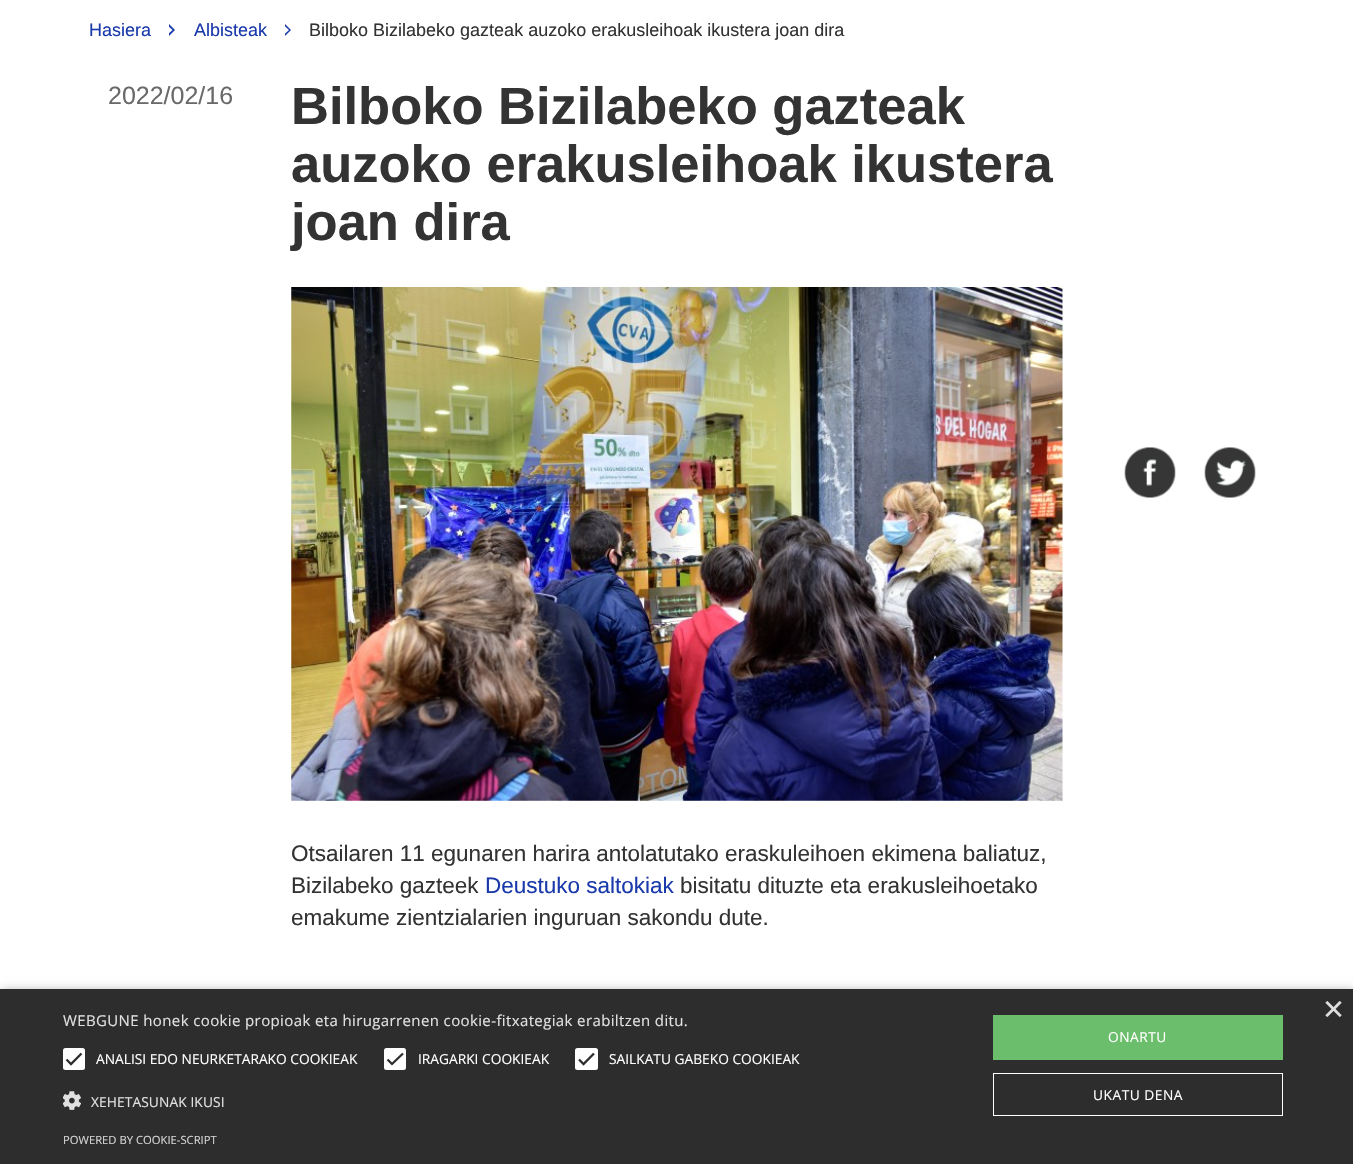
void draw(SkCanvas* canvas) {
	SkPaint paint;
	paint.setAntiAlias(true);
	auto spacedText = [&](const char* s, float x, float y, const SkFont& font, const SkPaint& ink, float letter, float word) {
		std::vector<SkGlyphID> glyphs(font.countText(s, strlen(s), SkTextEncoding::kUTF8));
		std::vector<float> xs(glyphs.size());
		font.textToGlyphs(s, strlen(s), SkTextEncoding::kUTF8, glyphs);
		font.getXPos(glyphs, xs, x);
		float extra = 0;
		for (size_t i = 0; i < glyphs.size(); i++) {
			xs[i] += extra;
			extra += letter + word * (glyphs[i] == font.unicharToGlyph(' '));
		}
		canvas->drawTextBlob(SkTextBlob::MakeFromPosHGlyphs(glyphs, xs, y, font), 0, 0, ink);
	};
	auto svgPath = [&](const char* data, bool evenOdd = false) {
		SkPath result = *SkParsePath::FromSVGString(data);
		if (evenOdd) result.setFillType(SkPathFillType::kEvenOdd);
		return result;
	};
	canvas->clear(0xffffffff);
	SkFont f1(fontMgr->matchFamilyStyle("Liberation Sans", SkFontStyle::Normal()), 18);
	f1.setSubpixel(true);
	paint.setColor(0xff1a3aab);
	canvas->drawString("Hasiera", 89, 36, f1, paint);
	canvas->drawPath(svgPath("M169 36V24L175 30Z"), paint);
	paint.setColor(0xffffffff);
	canvas->drawPath(svgPath("M166 36V24L172.5 30Z"), paint);
	paint.setColor(0xff1a3aab);
	canvas->drawString("Albisteak", 194, 36, f1, paint);
	canvas->drawPath(svgPath("M285 36V24L291 30Z"), paint);
	paint.setColor(0xffffffff);
	canvas->drawPath(svgPath("M282.5 36V24L289 30Z"), paint);
	paint.setColor(0xff333333);
	canvas->drawString("Bilboko Bizilabeko gazteak auzoko erakusleihoak ikustera joan dira", 309, 36, f1, paint);
	SkFont f2(fontMgr->matchFamilyStyle("Liberation Sans", SkFontStyle::Normal()), 25);
	f2.setSubpixel(true);
	paint.setColor(0xff696969);
	canvas->drawString("2022/02/16", 108, 104, f2, paint);
	SkFont f3(fontMgr->matchFamilyStyle("Liberation Sans", SkFontStyle::Bold()), 52.5);
	f3.setSubpixel(true);
	paint.setColor(0xff333333);
	canvas->drawString("Bilboko Bizilabeko gazteak", 291, 124, f3, paint);
	canvas->drawString("auzoko erakusleihoak ikustera", 291, 182, f3, paint);
	canvas->drawString("joan dira", 291, 240, f3, paint);
	canvas->drawImageRect(SkImages::DeferredFromEncodedData(SkData::MakeFromFileName("img1.png")), SkRect::MakeXYWH(291, 287, 772, 514), SkSamplingOptions());
	SkFont f4(fontMgr->matchFamilyStyle("Liberation Sans", SkFontStyle::Normal()), 22.5);
	f4.setSubpixel(true);
	canvas->drawString("Otsailaren 11 egunaren harira antolatutako eraskuleihoen ekimena baliatuz,", 291, 861, f4, paint);
	canvas->drawString("Bizilabeko gazteek", 291, 893, f4, paint);
	paint.setColor(0xff1a3aab);
	canvas->drawString("Deustuko saltokiak", 485, 893, f4, paint);
	paint.setColor(0xff333333);
	canvas->drawString("bisitatu dituzte eta erakusleihoetako", 680, 893, f4, paint);
	canvas->drawString("emakume zientzialarien inguruan sakondu dute.", 291, 925, f4, paint);
	canvas->drawImageRect(SkImages::DeferredFromEncodedData(SkData::MakeFromFileName("img2.png")), SkRect::MakeXYWH(1124, 447, 52, 51), SkSamplingOptions());
	canvas->drawImageRect(SkImages::DeferredFromEncodedData(SkData::MakeFromFileName("img3.png")), SkRect::MakeXYWH(1204, 447, 52, 51), SkSamplingOptions());
	paint.setColor(0x59000000);
	paint.setMaskFilter(SkMaskFilter::MakeBlur(kNormal_SkBlurStyle, 5));
	canvas->drawRect(SkRect::MakeXYWH(1, 991, 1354, 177), paint);
	paint.setMaskFilter(nullptr);
	paint.setColor(0xff2d2d2d);
	canvas->drawRect(SkRect::MakeXYWH(0, 989, 1353, 175), paint);
	SkFont f5(fontMgr->matchFamilyStyle("Liberation Sans", SkFontStyle::Normal()), 36);
	f5.setSubpixel(true);
	paint.setColor(0xffe0e0e0);
	canvas->drawString("×", 1323, 1021, f5, paint);
	SkFont f6(fontMgr->matchFamilyStyle("Open Sans", SkFontStyle::Normal()), 15);
	f6.setSubpixel(true);
	spacedText("WEBGUNE honek cookie propioak eta hirugarrenen cookie-fitxategiak erabiltzen ditu.", 63, 1026, f6, paint, 0.38, 0);
	paint.setColor(0xffffffff);
	canvas->drawRoundRect(SkRect::MakeXYWH(64.5, 1049.5, 19, 19), 1, 1, paint);
	paint.setStroke(true);
	paint.setStrokeWidth(3);
	canvas->drawRoundRect(SkRect::MakeXYWH(64.5, 1049.5, 19, 19), 1, 1, paint);
	paint.setStrokeWidth(2.3);
	paint.setColor(0xff2d2d2d);
	canvas->drawPath(svgPath("M66.5 1059.5L71 1064L81.5 1053.5"), paint);
	SkFont f7(fontMgr->matchFamilyStyle("Open Sans", SkFontStyle::Normal()), 13.75);
	f7.setSubpixel(true);
	paint.setStroke(false);
	paint.setColor(0xffffffff);
	canvas->drawString("ANALISI EDO NEURKETARAKO COOKIEAK", 96, 1064, f7, paint);
	canvas->drawRoundRect(SkRect::MakeXYWH(385.5, 1049.5, 19, 19), 1, 1, paint);
	paint.setStroke(true);
	paint.setStrokeWidth(3);
	canvas->drawRoundRect(SkRect::MakeXYWH(385.5, 1049.5, 19, 19), 1, 1, paint);
	paint.setStrokeWidth(2.3);
	paint.setColor(0xff2d2d2d);
	canvas->drawPath(svgPath("M387.5 1059.5L392 1064L403 1053.5"), paint);
	paint.setStroke(false);
	paint.setColor(0xffffffff);
	canvas->drawString("IRAGARKI COOKIEAK", 418, 1064, f7, paint);
	canvas->drawRoundRect(SkRect::MakeXYWH(576.5, 1049.5, 20, 19), 1, 1, paint);
	paint.setStroke(true);
	paint.setStrokeWidth(3);
	canvas->drawRoundRect(SkRect::MakeXYWH(576.5, 1049.5, 20, 19), 1, 1, paint);
	paint.setStrokeWidth(2.3);
	paint.setColor(0xff2d2d2d);
	canvas->drawPath(svgPath("M579 1059.5L583.5 1064L594 1053.5"), paint);
	paint.setStroke(false);
	paint.setColor(0xffffffff);
	canvas->drawString("SAILKATU GABEKO COOKIEAK", 609, 1064, f7, paint);
	canvas->drawImageRect(SkImages::DeferredFromEncodedData(SkData::MakeFromFileName("img4.png")), SkRect::MakeXYWH(63, 1091, 18, 19), SkSamplingOptions());
	paint.setColor(0xffe0e0e0);
	spacedText("XEHETASUNAK IKUSI", 91, 1107, f7, paint, 0.1, 0);
	paint.setColor(0xff6bbe6b);
	canvas->drawRect(SkRect::MakeXYWH(993, 1015, 290, 45), paint);
	paint.setColor(0xffffffff);
	spacedText("ONARTU", 1108, 1042, f7, paint, 0.5, 0);
	paint.setStroke(true);
	paint.setStrokeWidth(1);
	canvas->drawRect(SkRect::MakeXYWH(993.5, 1073.5, 289, 42), paint);
	paint.setStroke(false);
	spacedText("UKATU DENA", 1093, 1100, f7, paint, 0.5, 0);
	SkFont f8(fontMgr->matchFamilyStyle("Open Sans", SkFontStyle::Normal()), 11.25);
	f8.setSubpixel(true);
	paint.setColor(0xffd5d5d5);
	canvas->drawString("POWERED BY COOKIE-SCRIPT", 63, 1144, f8, paint);
}
